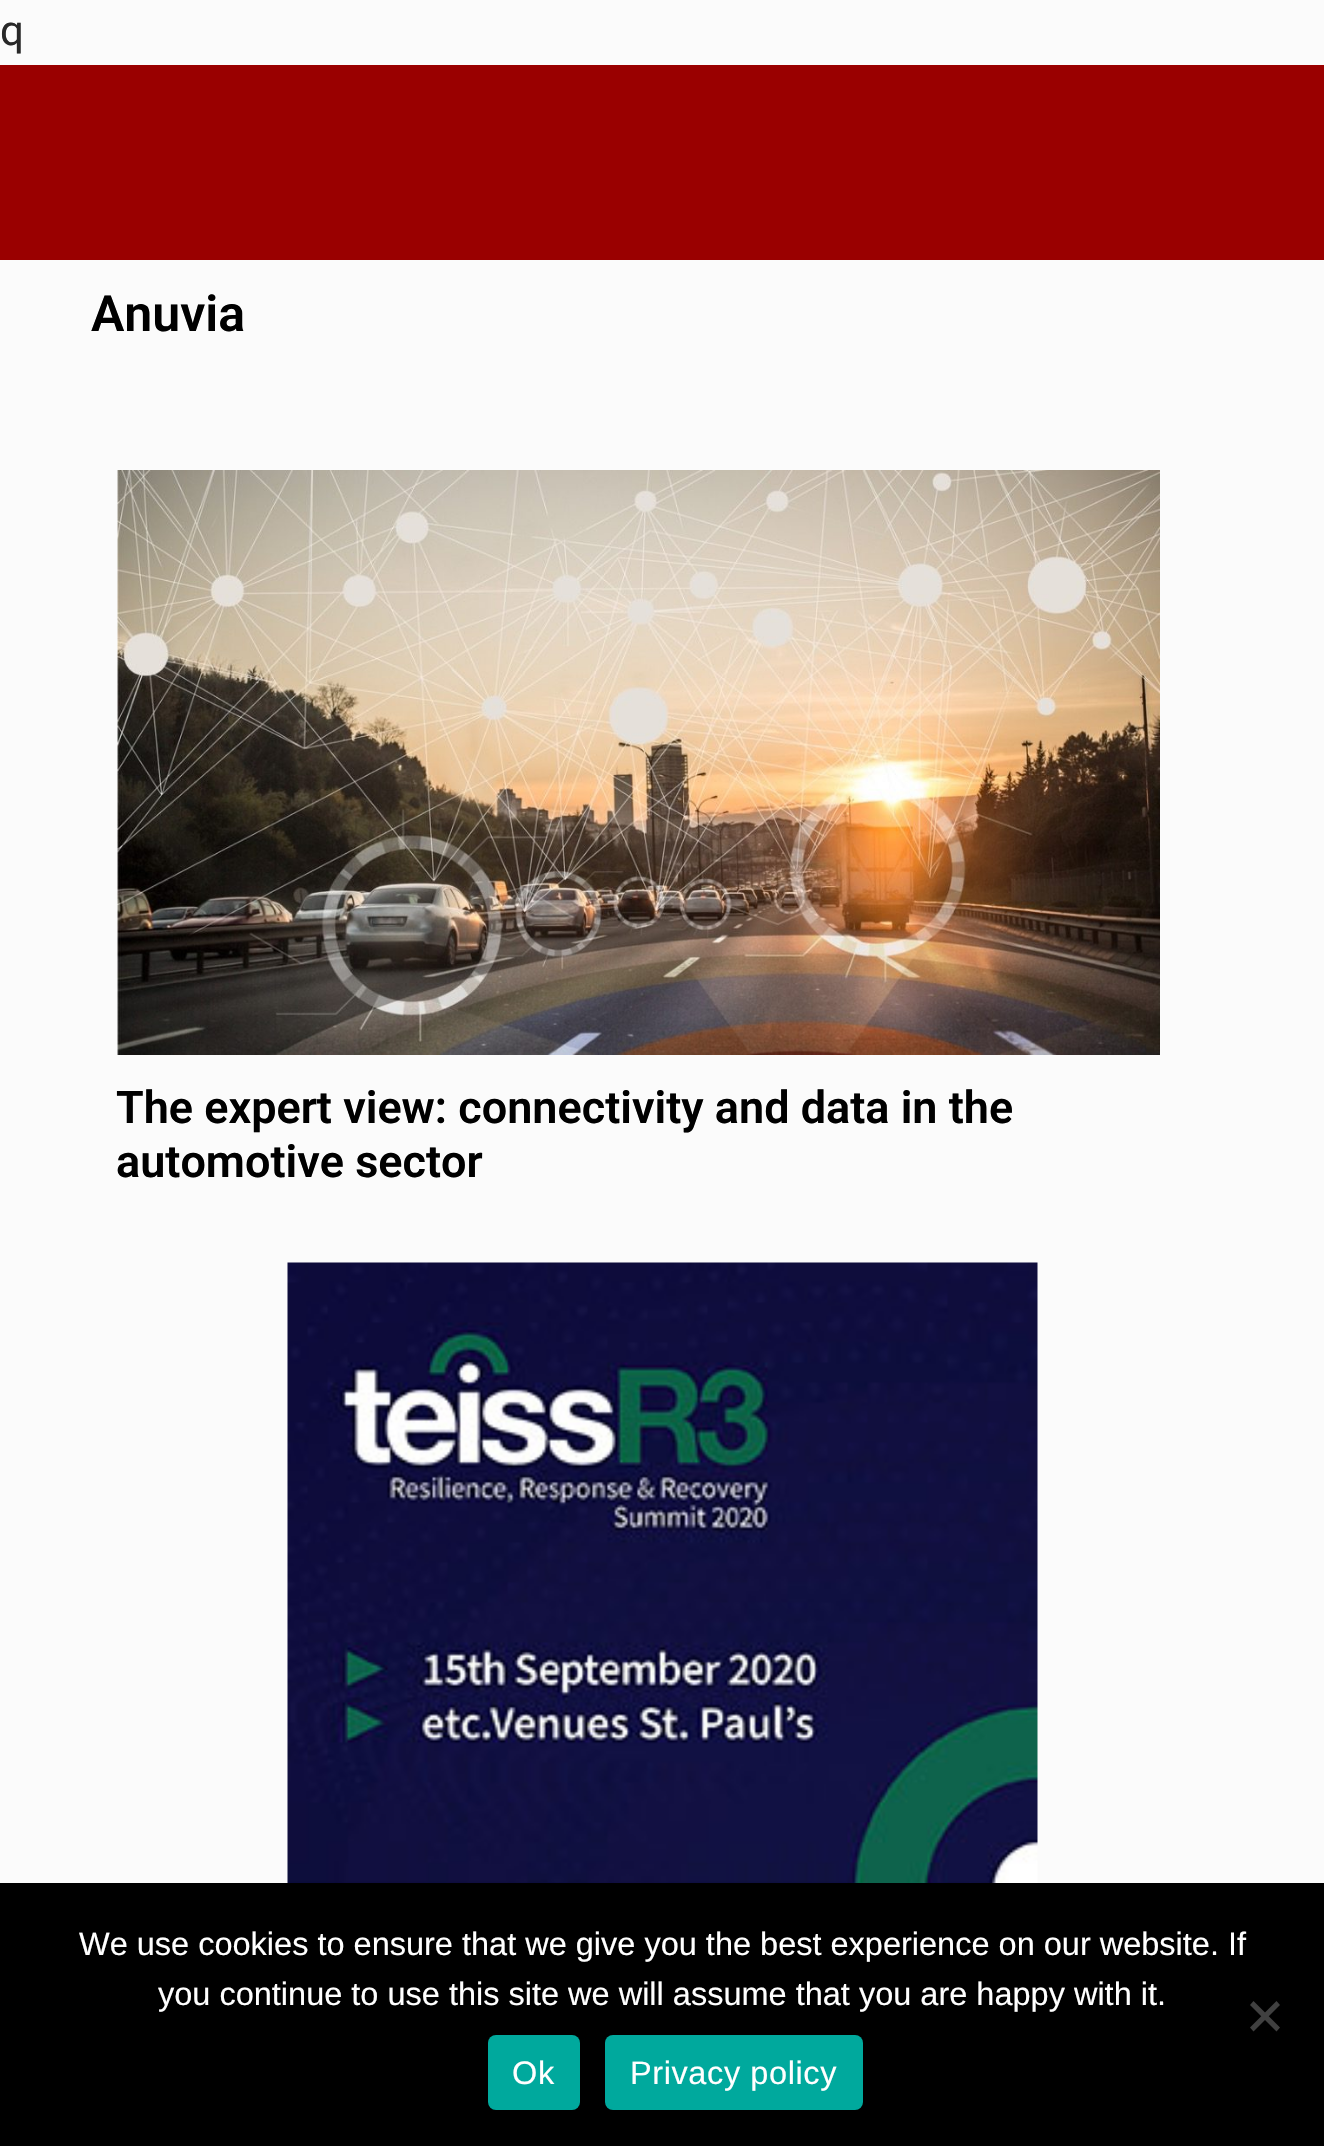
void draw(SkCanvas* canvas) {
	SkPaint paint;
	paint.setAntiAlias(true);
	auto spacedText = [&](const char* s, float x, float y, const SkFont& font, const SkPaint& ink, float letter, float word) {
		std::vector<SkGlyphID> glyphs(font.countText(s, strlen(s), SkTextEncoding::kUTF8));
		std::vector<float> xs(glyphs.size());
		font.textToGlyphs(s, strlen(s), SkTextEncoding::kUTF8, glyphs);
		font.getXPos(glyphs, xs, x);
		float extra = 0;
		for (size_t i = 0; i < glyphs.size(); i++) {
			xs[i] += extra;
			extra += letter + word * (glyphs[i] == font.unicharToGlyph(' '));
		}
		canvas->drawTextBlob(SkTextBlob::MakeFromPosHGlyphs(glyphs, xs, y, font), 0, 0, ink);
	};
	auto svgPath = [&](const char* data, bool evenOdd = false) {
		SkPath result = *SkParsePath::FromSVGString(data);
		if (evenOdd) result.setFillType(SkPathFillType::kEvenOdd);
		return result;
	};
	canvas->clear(0xfffbfbfb);
	SkFont f1(fontMgr->matchFamilyStyle("Roboto", SkFontStyle::Normal()), 42);
	f1.setSubpixel(true);
	paint.setColor(0xff282828);
	canvas->drawString("q", 0, 45, f1, paint);
	paint.setColor(0xff9a0000);
	canvas->drawRect(SkRect::MakeXYWH(0, 65, 1324, 195), paint);
	SkFont f2(fontMgr->matchFamilyStyle("Roboto", SkFontStyle(600, SkFontStyle::kNormal_Width, SkFontStyle::kUpright_Slant)), 50);
	f2.setSubpixel(true);
	paint.setColor(0xff000000);
	canvas->drawString("Anuvia", 91, 331, f2, paint);
	canvas->drawImageRect(SkImages::DeferredFromEncodedData(SkData::MakeFromFileName("img1.png")), SkRect::MakeXYWH(117, 470, 1043, 585), SkSamplingOptions());
	SkFont f3(fontMgr->matchFamilyStyle("Roboto", SkFontStyle(600, SkFontStyle::kNormal_Width, SkFontStyle::kUpright_Slant)), 45);
	f3.setSubpixel(true);
	canvas->drawString("The expert view: connectivity and data in the", 116, 1123, f3, paint);
	canvas->drawString("automotive sector", 116, 1177, f3, paint);
	canvas->drawImageRect(SkImages::DeferredFromEncodedData(SkData::MakeFromFileName("img2.png")), SkRect::MakeXYWH(287, 1262, 751, 621), SkSamplingOptions());
	canvas->drawRect(SkRect::MakeXYWH(0, 1883, 1324, 263), paint);
	SkFont f4(fontMgr->matchFamilyStyle("Liberation Sans", SkFontStyle::Normal()), 32.5);
	f4.setSubpixel(true);
	paint.setColor(0xffffffff);
	canvas->drawString("We use cookies to ensure that we give you the best experience on our website. If", 79, 1955, f4, paint);
	canvas->drawString("you continue to use this site we will assume that you are happy with it.", 158, 2005, f4, paint);
	paint.setColor(0xff404040);
	canvas->drawPath(svgPath("M1276.5 2001L1280 2005L1253.5 2031.5L1250 2027.5Z"), paint);
	canvas->drawPath(svgPath("M1250 2005L1253.5 2001L1280 2027.5L1276.5 2031.5Z"), paint);
	paint.setColor(0xff00a99d);
	canvas->drawRoundRect(SkRect::MakeXYWH(488, 2035, 92, 75), 8, 8, paint);
	paint.setColor(0xffffffff);
	spacedText("Ok", 512, 2084, f4, paint, 0.6, 0);
	paint.setColor(0xff00a99d);
	canvas->drawRoundRect(SkRect::MakeXYWH(605, 2035, 258, 75), 8, 8, paint);
	paint.setColor(0xffffffff);
	spacedText("Privacy policy", 630, 2084, f4, paint, 0.6, 0);
}
